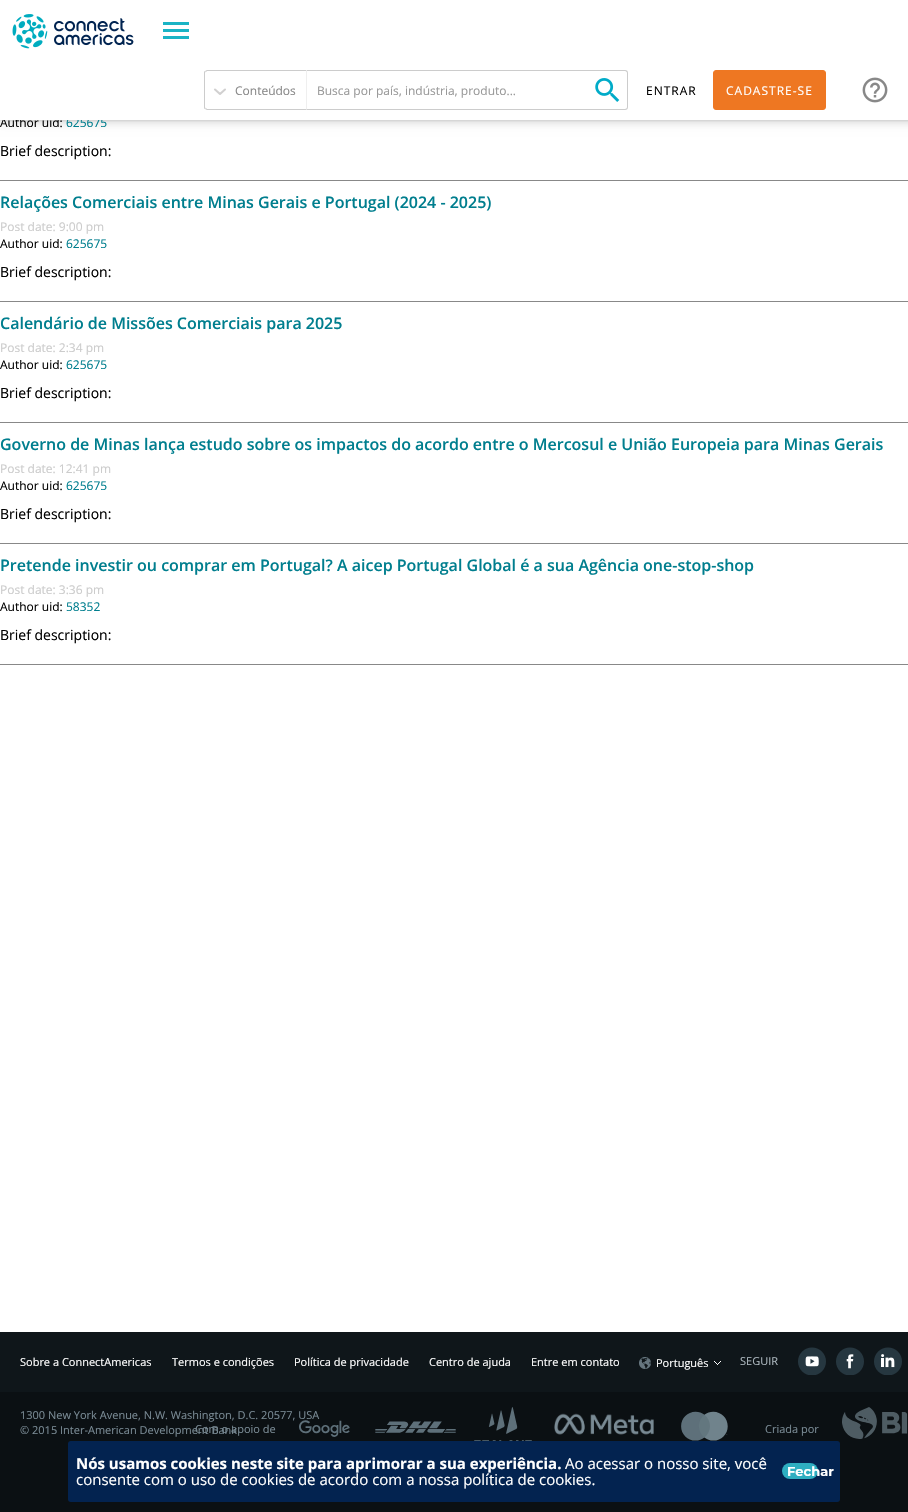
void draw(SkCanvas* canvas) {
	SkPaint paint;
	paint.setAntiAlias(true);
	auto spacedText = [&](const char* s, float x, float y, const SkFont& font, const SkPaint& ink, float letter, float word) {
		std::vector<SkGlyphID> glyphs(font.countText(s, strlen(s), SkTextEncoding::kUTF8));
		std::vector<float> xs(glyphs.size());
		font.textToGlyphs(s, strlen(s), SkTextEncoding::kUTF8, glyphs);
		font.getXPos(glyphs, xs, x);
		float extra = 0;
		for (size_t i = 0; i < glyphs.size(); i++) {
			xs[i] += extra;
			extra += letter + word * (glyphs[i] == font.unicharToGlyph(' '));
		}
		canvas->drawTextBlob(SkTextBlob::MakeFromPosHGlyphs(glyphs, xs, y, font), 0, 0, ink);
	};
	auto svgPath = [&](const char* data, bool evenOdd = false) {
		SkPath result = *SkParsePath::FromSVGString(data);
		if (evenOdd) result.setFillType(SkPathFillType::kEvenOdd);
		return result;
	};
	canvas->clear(0xffffffff);
	paint.setColor(0x1a000000);
	paint.setMaskFilter(SkMaskFilter::MakeBlur(kNormal_SkBlurStyle, 1));
	canvas->drawRect(SkRect::MakeXYWH(0, 1, 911, 120), paint);
	paint.setMaskFilter(nullptr);
	paint.setColor(0x29000000);
	paint.setMaskFilter(SkMaskFilter::MakeBlur(kNormal_SkBlurStyle, 5));
	canvas->drawRect(SkRect::MakeXYWH(0, 2, 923, 120), paint);
	paint.setMaskFilter(nullptr);
	SkFont f1(fontMgr->matchFamilyStyle("Open Sans", SkFontStyle::Normal()), 12);
	f1.setSubpixel(true);
	paint.setColor(0xff000000);
	canvas->drawString("Author uid:", 0, 127, f1, paint);
	paint.setColor(0xff007e8e);
	canvas->drawString("625675", 66, 127, f1, paint);
	paint.setColor(0xffffffff);
	canvas->drawRect(SkRect::MakeXYWH(0, 0, 908, 120), paint);
	canvas->drawImageRect(SkImages::DeferredFromEncodedData(SkData::MakeFromFileName("img1.png")), SkRect::MakeXYWH(12, 14, 122, 35), SkSamplingOptions());
	paint.setColor(0xff1ab4c5);
	canvas->drawRect(SkRect::MakeXYWH(163, 22, 26, 3), paint);
	canvas->drawRect(SkRect::MakeXYWH(163, 29, 26, 3), paint);
	canvas->drawRect(SkRect::MakeXYWH(163, 36, 26, 3), paint);
	paint.setStroke(true);
	paint.setStrokeWidth(2);
	paint.setStrokeCap(SkPaint::kRound_Cap);
	paint.setStrokeJoin(SkPaint::kRound_Join);
	paint.setColor(0xffd1d0d0);
	canvas->drawPath(svgPath("M215 89.5L220 94L225 89.5"), paint);
	paint.setStroke(false);
	paint.setColor(0xffcccccc);
	canvas->drawPath(svgPath("M207 70L205 71L206 72L207 71H306L307 70Z"), paint);
	paint.setColor(0xffefefef);
	canvas->drawPath(svgPath("M307 70L306 71V109L307 110Z"), paint);
	paint.setColor(0xffcccccc);
	canvas->drawPath(svgPath("M307 110L306 109H207L206 108L205 109L207 110Z"), paint);
	canvas->drawPath(svgPath("M204 73V107C204 108 204 109 205 109L205.5 108.5L205 107V73L205.5 71.5L205 71C204 71 204 72 204 73Z"), paint);
	paint.setColor(0xff888888);
	canvas->drawString("Conteúdos", 235, 95, f1, paint);
	paint.setColor(0xffcccccc);
	canvas->drawRect(SkRect::MakeXYWH(307, 70, 280, 1), paint);
	canvas->drawRect(SkRect::MakeXYWH(307, 109, 280, 1), paint);
	paint.setColor(0xff999999);
	canvas->drawString("Busca por país, indústria, produto...", 317, 95, f1, paint);
	canvas->drawImageRect(SkImages::DeferredFromEncodedData(SkData::MakeFromFileName("img2.png")), SkRect::MakeXYWH(595, 78, 25, 24), SkSamplingOptions());
	paint.setColor(0xffcccccc);
	canvas->drawPath(svgPath("M587 70H625C627 70 628 71 628 73V107C628 109 627 110 625 110H587ZM587 71H625C626 71 627 72 627 73V107C627 108 626 109 625 109H587Z", true), paint);
	paint.setColor(0xff000000);
	spacedText("ENTRAR", 646, 95, f1, paint, 1, 0);
	paint.setColor(0xffee7722);
	canvas->drawRoundRect(SkRect::MakeXYWH(713.5, 70.5, 112, 39), 2.5, 2.5, paint);
	paint.setStroke(true);
	paint.setStrokeWidth(1);
	paint.setStrokeCap(SkPaint::kButt_Cap);
	paint.setStrokeJoin(SkPaint::kMiter_Join);
	canvas->drawRoundRect(SkRect::MakeXYWH(713.5, 70.5, 112, 39), 2.5, 2.5, paint);
	paint.setStroke(false);
	paint.setColor(0xffffffff);
	spacedText("CADASTRE-SE", 726, 95, f1, paint, 1, 0);
	canvas->drawImageRect(SkImages::DeferredFromEncodedData(SkData::MakeFromFileName("img3.png")), SkRect::MakeXYWH(862, 77, 26, 26), SkSamplingOptions());
	paint.setColor(0xff888888);
	canvas->drawRect(SkRect::MakeXYWH(0, 180, 908, 1), paint);
	SkFont f2(fontMgr->matchFamilyStyle("Open Sans", SkFontStyle::Normal()), 14);
	f2.setSubpixel(true);
	paint.setColor(0xff000000);
	canvas->drawString("Brief description:", 0, 156, f2, paint);
	paint.setColor(0xff888888);
	canvas->drawRect(SkRect::MakeXYWH(0, 301, 908, 1), paint);
	SkFont f3(fontMgr->matchFamilyStyle("Open Sans", SkFontStyle(600, SkFontStyle::kNormal_Width, SkFontStyle::kUpright_Slant)), 16);
	f3.setSubpixel(true);
	paint.setColor(0xff007e8e);
	canvas->drawString("Relações Comerciais entre Minas Gerais e Portugal (2024 - 2025)", 0, 208, f3, paint);
	paint.setColor(0xffcccccc);
	canvas->drawString("Post date: 9:00 pm", 0, 231, f1, paint);
	paint.setColor(0xff000000);
	canvas->drawString("Author uid:", 0, 248, f1, paint);
	paint.setColor(0xff007e8e);
	canvas->drawString("625675", 66, 248, f1, paint);
	paint.setColor(0xff000000);
	canvas->drawString("Brief description:", 0, 277, f2, paint);
	paint.setColor(0xff888888);
	canvas->drawRect(SkRect::MakeXYWH(0, 422, 908, 1), paint);
	paint.setColor(0xff007e8e);
	canvas->drawString("Calendário de Missões Comerciais para 2025", 0, 329, f3, paint);
	paint.setColor(0xffcccccc);
	canvas->drawString("Post date: 2:34 pm", 0, 352, f1, paint);
	paint.setColor(0xff000000);
	canvas->drawString("Author uid:", 0, 369, f1, paint);
	paint.setColor(0xff007e8e);
	canvas->drawString("625675", 66, 369, f1, paint);
	paint.setColor(0xff000000);
	canvas->drawString("Brief description:", 0, 398, f2, paint);
	paint.setColor(0xff888888);
	canvas->drawRect(SkRect::MakeXYWH(0, 543, 908, 1), paint);
	paint.setColor(0xff007e8e);
	canvas->drawString("Governo de Minas lança estudo sobre os impactos do acordo entre o Mercosul e União Europeia para Minas Gerais", 0, 450, f3, paint);
	paint.setColor(0xffcccccc);
	canvas->drawString("Post date: 12:41 pm", 0, 473, f1, paint);
	paint.setColor(0xff000000);
	canvas->drawString("Author uid:", 0, 490, f1, paint);
	paint.setColor(0xff007e8e);
	canvas->drawString("625675", 66, 490, f1, paint);
	paint.setColor(0xff000000);
	canvas->drawString("Brief description:", 0, 519, f2, paint);
	paint.setColor(0xff888888);
	canvas->drawRect(SkRect::MakeXYWH(0, 664, 908, 1), paint);
	paint.setColor(0xff007e8e);
	canvas->drawString("Pretende investir ou comprar em Portugal? A aicep Portugal Global é a sua Agência one-stop-shop", 0, 571, f3, paint);
	paint.setColor(0xffcccccc);
	canvas->drawString("Post date: 3:36 pm", 0, 594, f1, paint);
	paint.setColor(0xff000000);
	canvas->drawString("Author uid:", 0, 611, f1, paint);
	paint.setColor(0xff007e8e);
	canvas->drawString("58352", 66, 611, f1, paint);
	paint.setColor(0xff000000);
	canvas->drawString("Brief description:", 0, 640, f2, paint);
	paint.setColor(0xff0b1013);
	canvas->drawRect(SkRect::MakeXYWH(0, 1392, 908, 120), paint);
	paint.setColor(0xff0f161a);
	canvas->drawRect(SkRect::MakeXYWH(0, 1332, 908, 60), paint);
	SkFont f4(fontMgr->matchFamilyStyle("Open Sans", SkFontStyle::Normal()), 11);
	f4.setSubpixel(true);
	paint.setColor(0xffffffff);
	canvas->drawString("Sobre a ConnectAmericas", 20, 1366, f4, paint);
	canvas->drawString("Termos e condições", 172, 1366, f4, paint);
	canvas->drawString("Política de privacidade", 294, 1366, f4, paint);
	canvas->drawString("Centro de ajuda", 429, 1366, f4, paint);
	canvas->drawString("Entre em contato", 531, 1366, f4, paint);
	canvas->drawImageRect(SkImages::DeferredFromEncodedData(SkData::MakeFromFileName("img4.png")), SkRect::MakeXYWH(639, 1357, 12, 12), SkSamplingOptions());
	canvas->drawImageRect(SkImages::DeferredFromEncodedData(SkData::MakeFromFileName("img5.png")), SkRect::MakeXYWH(714, 1361, 7, 4), SkSamplingOptions());
	canvas->drawString("Português", 656, 1367, f4, paint);
	paint.setColor(0xffadb8bf);
	canvas->drawString("SEGUIR", 740, 1365, f4, paint);
	canvas->drawImageRect(SkImages::DeferredFromEncodedData(SkData::MakeFromFileName("img6.png")), SkRect::MakeXYWH(798, 1347, 28, 28), SkSamplingOptions());
	canvas->drawImageRect(SkImages::DeferredFromEncodedData(SkData::MakeFromFileName("img7.png")), SkRect::MakeXYWH(836, 1347, 28, 28), SkSamplingOptions());
	canvas->drawImageRect(SkImages::DeferredFromEncodedData(SkData::MakeFromFileName("img8.png")), SkRect::MakeXYWH(874, 1347, 28, 28), SkSamplingOptions());
	paint.setColor(0xff798a94);
	canvas->drawString("1300 New York Avenue, N.W. Washington, D.C. 20577, USA", 20, 1419, f4, paint);
	canvas->drawString("© 2015 Inter-American Development Bank", 20, 1434, f4, paint);
	canvas->drawString("Com o apoio de", 195, 1433, f4, paint);
	canvas->drawImageRect(SkImages::DeferredFromEncodedData(SkData::MakeFromFileName("img9.png")), SkRect::MakeXYWH(299, 1420, 51, 17), SkSamplingOptions());
	canvas->drawImageRect(SkImages::DeferredFromEncodedData(SkData::MakeFromFileName("img10.png")), SkRect::MakeXYWH(375, 1421, 81, 12), SkSamplingOptions());
	canvas->drawImageRect(SkImages::DeferredFromEncodedData(SkData::MakeFromFileName("img11.png")), SkRect::MakeXYWH(474, 1407, 58, 34), SkSamplingOptions());
	canvas->drawImageRect(SkImages::DeferredFromEncodedData(SkData::MakeFromFileName("img12.png")), SkRect::MakeXYWH(554, 1413, 100, 22), SkSamplingOptions());
	canvas->drawImageRect(SkImages::DeferredFromEncodedData(SkData::MakeFromFileName("img13.png")), SkRect::MakeXYWH(681, 1411, 47, 30), SkSamplingOptions());
	canvas->drawString("Criada por", 765, 1433, f4, paint);
	canvas->drawImageRect(SkImages::DeferredFromEncodedData(SkData::MakeFromFileName("img14.png")), SkRect::MakeXYWH(842, 1407, 66, 32), SkSamplingOptions());
	paint.setColor(0xff032350);
	canvas->drawRoundRect(SkRect::MakeXYWH(68, 1441, 772, 61), 3, 3, paint);
	SkFont f5(fontMgr->matchFamilyStyle("Open Sans", SkFontStyle::Bold()), 15);
	f5.setSubpixel(true);
	paint.setColor(0xffffffff);
	canvas->drawString("Nós usamos cookies neste site para aprimorar a sua experiência.", 76, 1469, f5, paint);
	SkFont f6(fontMgr->matchFamilyStyle("Open Sans", SkFontStyle::Normal()), 15);
	f6.setSubpixel(true);
	canvas->drawString("Ao acessar o nosso site, você", 565, 1469, f6, paint);
	canvas->drawString("consente com o uso de cookies de acordo com a nossa política de cookies.", 76, 1485, f6, paint);
	paint.setColor(0xff2eaec1);
	canvas->drawRoundRect(SkRect::MakeXYWH(782, 1463, 36, 16), 8, 8, paint);
	SkFont f7(fontMgr->matchFamilyStyle("Montserrat", SkFontStyle::Bold()), 13);
	f7.setSubpixel(true);
	paint.setColor(0xffffffff);
	canvas->drawString("Fechar", 787, 1476, f7, paint);
}
